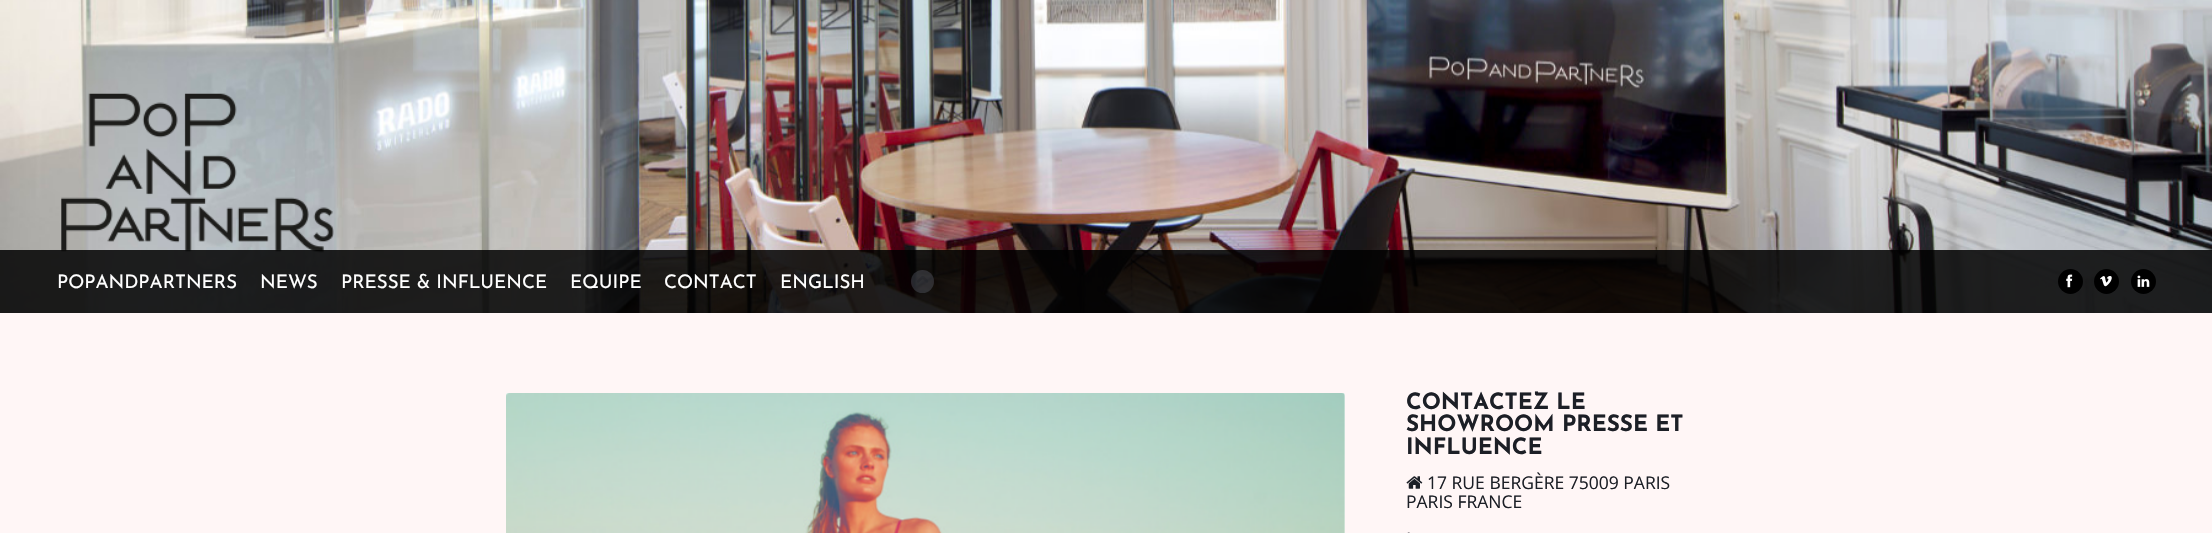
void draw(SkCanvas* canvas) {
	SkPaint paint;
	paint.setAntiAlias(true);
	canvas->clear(0xffffffff);
	canvas->drawImageRect(SkImages::DeferredFromEncodedData(SkData::MakeFromFileName("img1.png")), SkRect::MakeXYWH(0, 0, 2212, 313), SkSamplingOptions());
	canvas->drawImageRect(SkImages::DeferredFromEncodedData(SkData::MakeFromFileName("img2.png")), SkRect::MakeXYWH(61, 93, 273, 160), SkSamplingOptions());
	paint.setColor(0xd9000000);
	canvas->drawRect(SkRect::MakeXYWH(0, 250, 2212, 63), paint);
	SkFont f1(fontMgr->matchFamilyStyle("Josefin Sans", SkFontStyle::Normal()), 18.75);
	f1.setSubpixel(true);
	paint.setColor(0xffffffff);
	canvas->drawString("POPANDPARTNERS", 57, 288, f1, paint);
	canvas->drawString("NEWS", 260, 288, f1, paint);
	canvas->drawString("PRESSE & INFLUENCE", 341, 288, f1, paint);
	canvas->drawString("EQUIPE", 570, 288, f1, paint);
	canvas->drawString("CONTACT", 664, 288, f1, paint);
	canvas->drawString("ENGLISH", 780, 288, f1, paint);
	paint.setColor(0x4d757c8c);
	canvas->drawCircle(922.5, 281.5, 11.5, paint);
	canvas->drawImageRect(SkImages::DeferredFromEncodedData(SkData::MakeFromFileName("img3.png")), SkRect::MakeXYWH(917, 276, 11, 7), SkSamplingOptions());
	paint.setColor(0xff000000);
	canvas->drawCircle(2070.5, 281.5, 12.5, paint);
	canvas->drawImageRect(SkImages::DeferredFromEncodedData(SkData::MakeFromFileName("img4.png")), SkRect::MakeXYWH(2066, 274, 7, 14), SkSamplingOptions());
	canvas->drawCircle(2106.5, 281.5, 12.5, paint);
	canvas->drawImageRect(SkImages::DeferredFromEncodedData(SkData::MakeFromFileName("img5.png")), SkRect::MakeXYWH(2100, 276, 12, 11), SkSamplingOptions());
	canvas->drawCircle(2143.5, 281.5, 12.5, paint);
	canvas->drawImageRect(SkImages::DeferredFromEncodedData(SkData::MakeFromFileName("img6.png")), SkRect::MakeXYWH(2137, 275, 13, 12), SkSamplingOptions());
	paint.setColor(0xfffff6f6);
	canvas->drawRect(SkRect::MakeXYWH(0, 313, 2212, 220), paint);
	paint.setColor(0xffffffff);
	canvas->drawRect(SkRect::MakeXYWH(506, 393, 839, 140), paint);
	canvas->drawImageRect(SkImages::DeferredFromEncodedData(SkData::MakeFromFileName("img7.png")), SkRect::MakeXYWH(506, 393, 839, 140), SkSamplingOptions());
	SkFont f2(fontMgr->matchFamilyStyle("Josefin Sans", SkFontStyle::Bold()), 22.5);
	f2.setSubpixel(true);
	paint.setColor(0xff1c1f26);
	canvas->drawString("CONTACTEZ LE", 1406, 409, f2, paint);
	canvas->drawString("SHOWROOM PRESSE ET", 1406, 431, f2, paint);
	canvas->drawString("INFLUENCE", 1406, 454, f2, paint);
	canvas->drawImageRect(SkImages::DeferredFromEncodedData(SkData::MakeFromFileName("img8.png")), SkRect::MakeXYWH(1406, 476, 17, 13), SkSamplingOptions());
	SkFont f3(fontMgr->matchFamilyStyle("Open Sans", SkFontStyle::Normal()), 17.5);
	f3.setSubpixel(true);
	canvas->drawString("17 RUE BERGÈRE 75009 PARIS", 1427, 489, f3, paint);
	canvas->drawString("PARIS FRANCE", 1406, 508, f3, paint);
	canvas->drawImageRect(SkImages::DeferredFromEncodedData(SkData::MakeFromFileName("img9.png")), SkRect::MakeXYWH(1407, 532, 3, 1), SkSamplingOptions());
}
